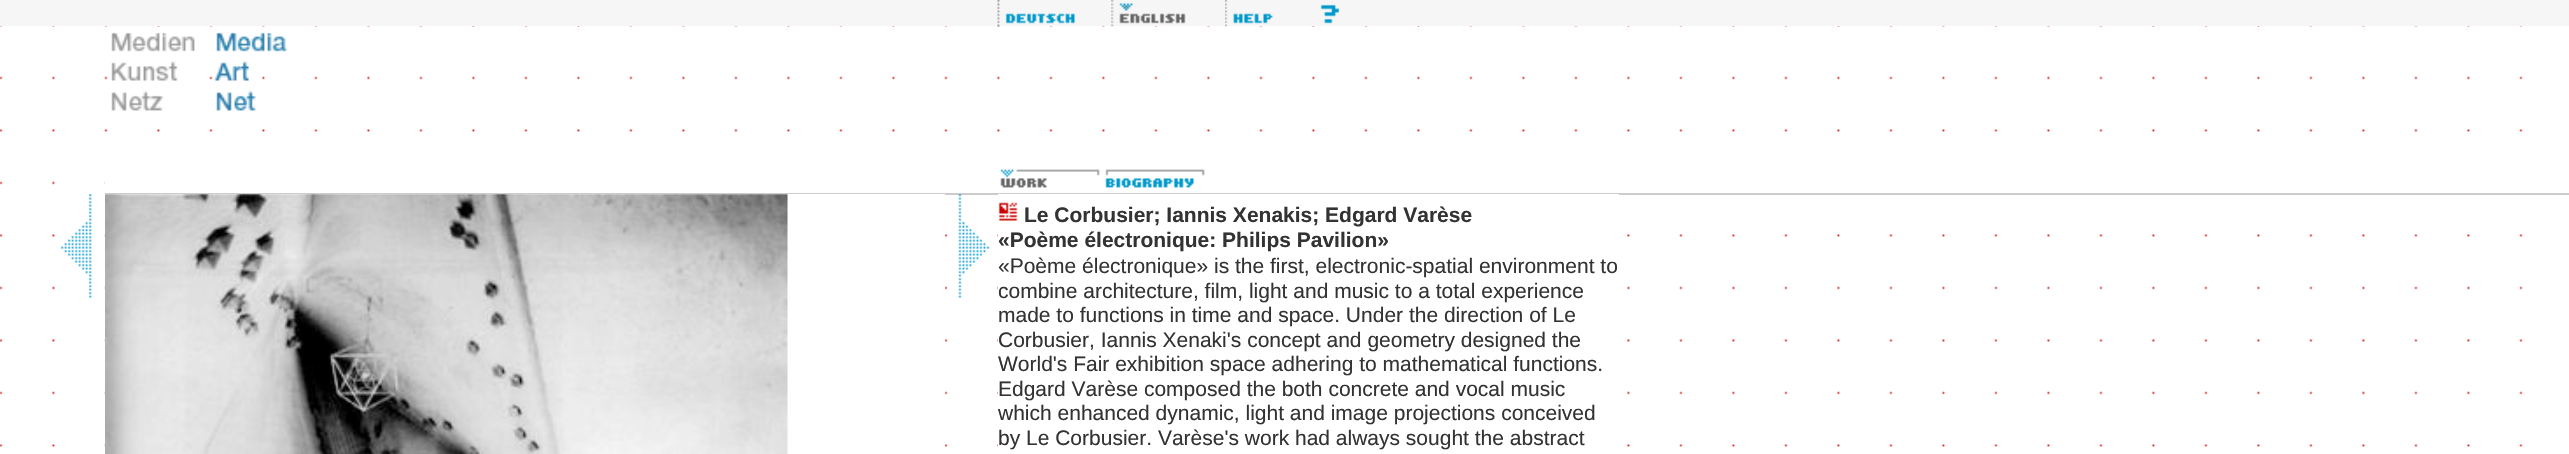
void draw(SkCanvas* canvas) {
	SkPaint paint;
	paint.setAntiAlias(true);
	canvas->clear(0xffffffff);
	canvas->drawImageRect(SkImages::DeferredFromEncodedData(SkData::MakeFromFileName("img1.png")), SkRect::MakeXYWH(0, 26, 2523, 421), SkSamplingOptions());
	paint.setColor(0xfff6f6f6);
	canvas->drawRect(SkRect::MakeXYWH(0, 0, 2569, 26), paint);
	canvas->drawImageRect(SkImages::DeferredFromEncodedData(SkData::MakeFromFileName("img2.png")), SkRect::MakeXYWH(997, 0, 78, 27), SkSamplingOptions());
	canvas->drawImageRect(SkImages::DeferredFromEncodedData(SkData::MakeFromFileName("img3.png")), SkRect::MakeXYWH(1111, 0, 75, 27), SkSamplingOptions());
	canvas->drawImageRect(SkImages::DeferredFromEncodedData(SkData::MakeFromFileName("img4.png")), SkRect::MakeXYWH(1225, 0, 114, 27), SkSamplingOptions());
	canvas->drawImageRect(SkImages::DeferredFromEncodedData(SkData::MakeFromFileName("img5.png")), SkRect::MakeXYWH(111, 32, 84, 79), SkSamplingOptions());
	canvas->drawImageRect(SkImages::DeferredFromEncodedData(SkData::MakeFromFileName("img6.png")), SkRect::MakeXYWH(214, 32, 74, 79), SkSamplingOptions());
	paint.setColor(0xffffffff);
	canvas->drawRect(SkRect::MakeXYWH(105, 181, 2418, 4), paint);
	paint.setColor(0xffcccccc);
	canvas->drawRect(SkRect::MakeXYWH(105, 193, 2464, 2), paint);
	canvas->drawImageRect(SkImages::DeferredFromEncodedData(SkData::MakeFromFileName("img7.png")), SkRect::MakeXYWH(1000, 169, 100, 19), SkSamplingOptions());
	canvas->drawImageRect(SkImages::DeferredFromEncodedData(SkData::MakeFromFileName("img8.png")), SkRect::MakeXYWH(1105, 169, 100, 19), SkSamplingOptions());
	canvas->drawImageRect(SkImages::DeferredFromEncodedData(SkData::MakeFromFileName("img9.png")), SkRect::MakeXYWH(60, 194, 32, 104), SkSamplingOptions());
	paint.setColor(0xffffffff);
	canvas->drawRect(SkRect::MakeXYWH(105, 194, 840, 253), paint);
	canvas->drawImageRect(SkImages::DeferredFromEncodedData(SkData::MakeFromFileName("img10.png")), SkRect::MakeXYWH(105, 194, 683, 260), SkSamplingOptions());
	canvas->drawImageRect(SkImages::DeferredFromEncodedData(SkData::MakeFromFileName("img11.png")), SkRect::MakeXYWH(958, 194, 32, 104), SkSamplingOptions());
	canvas->drawRect(SkRect::MakeXYWH(998, 194, 621, 253), paint);
	canvas->drawImageRect(SkImages::DeferredFromEncodedData(SkData::MakeFromFileName("img12.png")), SkRect::MakeXYWH(998, 202, 20, 19), SkSamplingOptions());
	SkFont f1(fontMgr->matchFamilyStyle("Liberation Sans", SkFontStyle::Bold()), 21);
	f1.setSubpixel(true);
	paint.setColor(0xff333333);
	canvas->drawString("Le Corbusier; Iannis Xenakis; Edgard Varèse", 1024, 222, f1, paint);
	canvas->drawString("«Poème électronique: Philips Pavilion»", 998, 247, f1, paint);
	SkFont f2(fontMgr->matchFamilyStyle("Liberation Sans", SkFontStyle::Normal()), 21);
	f2.setSubpixel(true);
	canvas->drawString("«Poème électronique» is the first, electronic-spatial environment to", 998, 273, f2, paint);
	canvas->drawString("combine architecture, film, light and music to a total experience", 998, 298, f2, paint);
	canvas->drawString("made to functions in time and space. Under the direction of Le", 998, 322, f2, paint);
	canvas->drawString("Corbusier, Iannis Xenaki's concept and geometry designed the", 998, 347, f2, paint);
	canvas->drawString("World's Fair exhibition space adhering to mathematical functions.", 998, 371, f2, paint);
	canvas->drawString("Edgard Varèse composed the both concrete and vocal music", 998, 396, f2, paint);
	canvas->drawString("which enhanced dynamic, light and image projections conceived", 998, 420, f2, paint);
	canvas->drawString("by Le Corbusier. Varèse's work had always sought the abstract", 998, 445, f2, paint);
}
